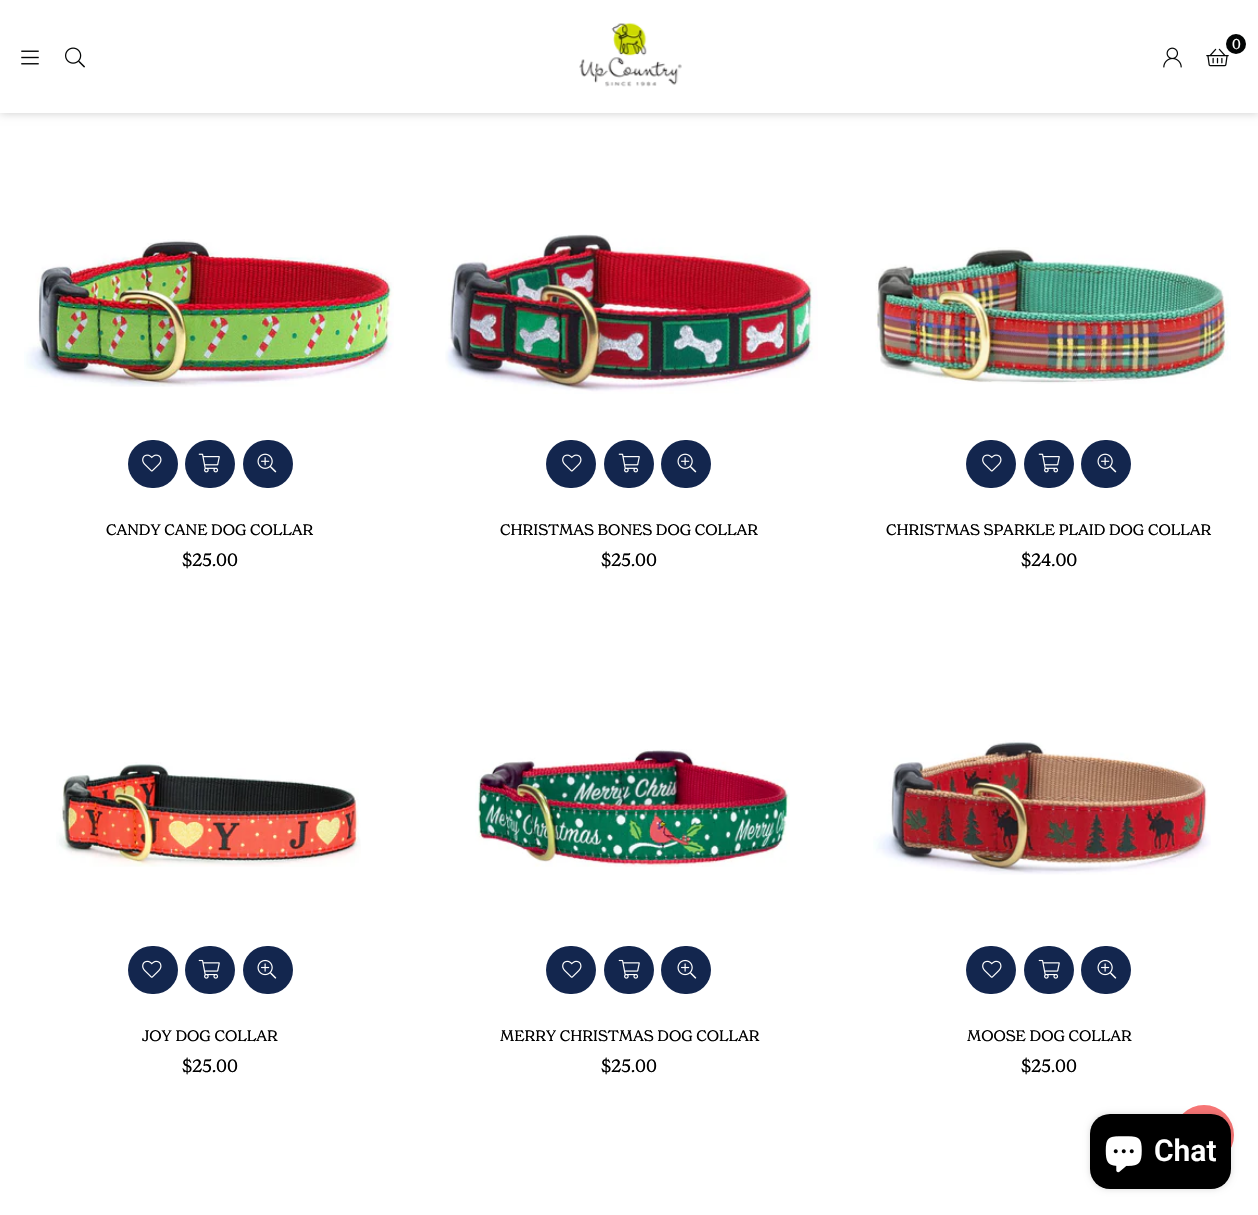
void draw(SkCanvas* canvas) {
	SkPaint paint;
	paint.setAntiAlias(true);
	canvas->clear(0xffffffff);
	paint.setColor(0x33000000);
	paint.setMaskFilter(SkMaskFilter::MakeBlur(kNormal_SkBlurStyle, 4.5));
	canvas->drawRect(SkRect::MakeXYWH(0, 0, 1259, 113), paint);
	paint.setMaskFilter(nullptr);
	paint.setColor(0xffffffff);
	canvas->drawRect(SkRect::MakeXYWH(0, 0, 1258, 113), paint);
	canvas->drawImageRect(SkImages::DeferredFromEncodedData(SkData::MakeFromFileName("img1.png")), SkRect::MakeXYWH(579, 22, 103, 65), SkSamplingOptions());
	canvas->drawImageRect(SkImages::DeferredFromEncodedData(SkData::MakeFromFileName("img2.png")), SkRect::MakeXYWH(1206, 48, 23, 19), SkSamplingOptions());
	paint.setColor(0xff030505);
	canvas->drawCircle(1236, 44, 10, paint);
	SkFont f1(fontMgr->matchFamilyStyle("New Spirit", SkFontStyle::Normal()), 14);
	f1.setSubpixel(true);
	paint.setColor(0xffffffff);
	canvas->drawString("0", 1232, 49, f1, paint);
	canvas->drawImageRect(SkImages::DeferredFromEncodedData(SkData::MakeFromFileName("img3.png")), SkRect::MakeXYWH(1163, 47, 19, 21), SkSamplingOptions());
	canvas->drawImageRect(SkImages::DeferredFromEncodedData(SkData::MakeFromFileName("img4.png")), SkRect::MakeXYWH(21, 50, 18, 15), SkSamplingOptions());
	canvas->drawImageRect(SkImages::DeferredFromEncodedData(SkData::MakeFromFileName("img5.png")), SkRect::MakeXYWH(65, 47, 20, 21), SkSamplingOptions());
	canvas->drawImageRect(SkImages::DeferredFromEncodedData(SkData::MakeFromFileName("img6.png")), SkRect::MakeXYWH(24, 239, 370, 148), SkSamplingOptions());
	paint.setColor(0xff13264e);
	canvas->drawRoundRect(SkRect::MakeXYWH(128, 440, 50, 48), 24, 24, paint);
	canvas->drawImageRect(SkImages::DeferredFromEncodedData(SkData::MakeFromFileName("img7.png")), SkRect::MakeXYWH(142, 454, 20, 18), SkSamplingOptions());
	canvas->drawRoundRect(SkRect::MakeXYWH(185, 440, 50, 48), 24, 24, paint);
	canvas->drawImageRect(SkImages::DeferredFromEncodedData(SkData::MakeFromFileName("img8.png")), SkRect::MakeXYWH(198, 453, 22, 20), SkSamplingOptions());
	canvas->drawRoundRect(SkRect::MakeXYWH(243, 440, 50, 48), 24, 24, paint);
	canvas->drawImageRect(SkImages::DeferredFromEncodedData(SkData::MakeFromFileName("img9.png")), SkRect::MakeXYWH(257, 453, 20, 20), SkSamplingOptions());
	SkFont f2(fontMgr->matchFamilyStyle("New Spirit", SkFontStyle::Normal()), 15);
	f2.setSubpixel(true);
	paint.setColor(0xff000000);
	canvas->drawString("CANDY CANE DOG COLLAR", 106, 535, f2, paint);
	SkFont f3(fontMgr->matchFamilyStyle("New Spirit", SkFontStyle::Normal()), 17.5);
	f3.setSubpixel(true);
	canvas->drawString("$25.00", 182, 566, f3, paint);
	canvas->drawImageRect(SkImages::DeferredFromEncodedData(SkData::MakeFromFileName("img10.png")), SkRect::MakeXYWH(445, 234, 373, 160), SkSamplingOptions());
	paint.setColor(0xff13264e);
	canvas->drawRoundRect(SkRect::MakeXYWH(546, 440, 50, 48), 24, 24, paint);
	canvas->drawImageRect(SkImages::DeferredFromEncodedData(SkData::MakeFromFileName("img7.png")), SkRect::MakeXYWH(562, 454, 20, 18), SkSamplingOptions());
	canvas->drawRoundRect(SkRect::MakeXYWH(604, 440, 50, 48), 24, 24, paint);
	canvas->drawImageRect(SkImages::DeferredFromEncodedData(SkData::MakeFromFileName("img8.png")), SkRect::MakeXYWH(618, 453, 22, 20), SkSamplingOptions());
	canvas->drawRoundRect(SkRect::MakeXYWH(661, 440, 50, 48), 24, 24, paint);
	canvas->drawImageRect(SkImages::DeferredFromEncodedData(SkData::MakeFromFileName("img9.png")), SkRect::MakeXYWH(677, 453, 20, 20), SkSamplingOptions());
	paint.setColor(0xff000000);
	canvas->drawString("CHRISTMAS BONES DOG COLLAR", 500, 535, f2, paint);
	canvas->drawString("$25.00", 601, 566, f3, paint);
	canvas->drawImageRect(SkImages::DeferredFromEncodedData(SkData::MakeFromFileName("img11.png")), SkRect::MakeXYWH(875, 247, 356, 137), SkSamplingOptions());
	paint.setColor(0xff13264e);
	canvas->drawRoundRect(SkRect::MakeXYWH(966, 440, 50, 48), 24, 24, paint);
	canvas->drawImageRect(SkImages::DeferredFromEncodedData(SkData::MakeFromFileName("img7.png")), SkRect::MakeXYWH(982, 454, 20, 18), SkSamplingOptions());
	canvas->drawRoundRect(SkRect::MakeXYWH(1024, 440, 50, 48), 24, 24, paint);
	canvas->drawImageRect(SkImages::DeferredFromEncodedData(SkData::MakeFromFileName("img8.png")), SkRect::MakeXYWH(1038, 453, 22, 20), SkSamplingOptions());
	canvas->drawRoundRect(SkRect::MakeXYWH(1081, 440, 50, 48), 24, 24, paint);
	canvas->drawImageRect(SkImages::DeferredFromEncodedData(SkData::MakeFromFileName("img9.png")), SkRect::MakeXYWH(1097, 453, 20, 20), SkSamplingOptions());
	paint.setColor(0xff000000);
	canvas->drawString("CHRISTMAS SPARKLE PLAID DOG COLLAR", 886, 535, f2, paint);
	canvas->drawString("$24.00", 1021, 566, f3, paint);
	canvas->drawImageRect(SkImages::DeferredFromEncodedData(SkData::MakeFromFileName("img12.png")), SkRect::MakeXYWH(56, 762, 305, 105), SkSamplingOptions());
	paint.setColor(0xff13264e);
	canvas->drawRoundRect(SkRect::MakeXYWH(128, 946, 50, 48), 24, 24, paint);
	canvas->drawImageRect(SkImages::DeferredFromEncodedData(SkData::MakeFromFileName("img13.png")), SkRect::MakeXYWH(142, 960, 20, 18), SkSamplingOptions());
	canvas->drawRoundRect(SkRect::MakeXYWH(185, 946, 50, 48), 24, 24, paint);
	canvas->drawImageRect(SkImages::DeferredFromEncodedData(SkData::MakeFromFileName("img14.png")), SkRect::MakeXYWH(198, 959, 22, 20), SkSamplingOptions());
	canvas->drawRoundRect(SkRect::MakeXYWH(243, 946, 50, 48), 24, 24, paint);
	canvas->drawImageRect(SkImages::DeferredFromEncodedData(SkData::MakeFromFileName("img15.png")), SkRect::MakeXYWH(257, 959, 20, 20), SkSamplingOptions());
	paint.setColor(0xff000000);
	canvas->drawString("JOY DOG COLLAR", 142, 1041, f2, paint);
	canvas->drawString("$25.00", 182, 1072, f3, paint);
	canvas->drawImageRect(SkImages::DeferredFromEncodedData(SkData::MakeFromFileName("img16.png")), SkRect::MakeXYWH(475, 749, 315, 118), SkSamplingOptions());
	paint.setColor(0xff13264e);
	canvas->drawRoundRect(SkRect::MakeXYWH(546, 946, 50, 48), 24, 24, paint);
	canvas->drawImageRect(SkImages::DeferredFromEncodedData(SkData::MakeFromFileName("img13.png")), SkRect::MakeXYWH(562, 960, 20, 18), SkSamplingOptions());
	canvas->drawRoundRect(SkRect::MakeXYWH(604, 946, 50, 48), 24, 24, paint);
	canvas->drawImageRect(SkImages::DeferredFromEncodedData(SkData::MakeFromFileName("img14.png")), SkRect::MakeXYWH(618, 959, 22, 20), SkSamplingOptions());
	canvas->drawRoundRect(SkRect::MakeXYWH(661, 946, 50, 48), 24, 24, paint);
	canvas->drawImageRect(SkImages::DeferredFromEncodedData(SkData::MakeFromFileName("img15.png")), SkRect::MakeXYWH(677, 959, 20, 20), SkSamplingOptions());
	paint.setColor(0xff000000);
	canvas->drawString("MERRY CHRISTMAS DOG COLLAR", 500, 1041, f2, paint);
	canvas->drawString("$25.00", 601, 1072, f3, paint);
	canvas->drawImageRect(SkImages::DeferredFromEncodedData(SkData::MakeFromFileName("img17.png")), SkRect::MakeXYWH(873, 740, 338, 135), SkSamplingOptions());
	paint.setColor(0xff13264e);
	canvas->drawRoundRect(SkRect::MakeXYWH(966, 946, 50, 48), 24, 24, paint);
	canvas->drawImageRect(SkImages::DeferredFromEncodedData(SkData::MakeFromFileName("img13.png")), SkRect::MakeXYWH(982, 960, 20, 18), SkSamplingOptions());
	canvas->drawRoundRect(SkRect::MakeXYWH(1024, 946, 50, 48), 24, 24, paint);
	canvas->drawImageRect(SkImages::DeferredFromEncodedData(SkData::MakeFromFileName("img14.png")), SkRect::MakeXYWH(1038, 959, 22, 20), SkSamplingOptions());
	canvas->drawRoundRect(SkRect::MakeXYWH(1081, 946, 50, 48), 24, 24, paint);
	canvas->drawImageRect(SkImages::DeferredFromEncodedData(SkData::MakeFromFileName("img15.png")), SkRect::MakeXYWH(1097, 959, 20, 20), SkSamplingOptions());
	paint.setColor(0xff000000);
	canvas->drawString("MOOSE DOG COLLAR", 967, 1041, f2, paint);
	canvas->drawString("$25.00", 1021, 1072, f3, paint);
	paint.setColor(0xfff77575);
	canvas->drawCircle(1204, 1135, 30, paint);
	paint.setColor(0x26000000);
	paint.setMaskFilter(SkMaskFilter::MakeBlur(kNormal_SkBlurStyle, 3));
	canvas->drawRoundRect(SkRect::MakeXYWH(1090, 1114, 141, 75), 20, 20, paint);
	paint.setMaskFilter(nullptr);
	paint.setColor(0xff000000);
	canvas->drawRoundRect(SkRect::MakeXYWH(1090, 1114, 141, 75), 20, 20, paint);
	canvas->drawImageRect(SkImages::DeferredFromEncodedData(SkData::MakeFromFileName("img18.png")), SkRect::MakeXYWH(1105, 1136, 37, 37), SkSamplingOptions());
	SkFont f4(fontMgr->matchFamilyStyle("Roboto", SkFontStyle(600, SkFontStyle::kNormal_Width, SkFontStyle::kUpright_Slant)), 30);
	f4.setSubpixel(true);
	paint.setColor(0xffffffff);
	canvas->drawString("Chat", 1154, 1161, f4, paint);
}
